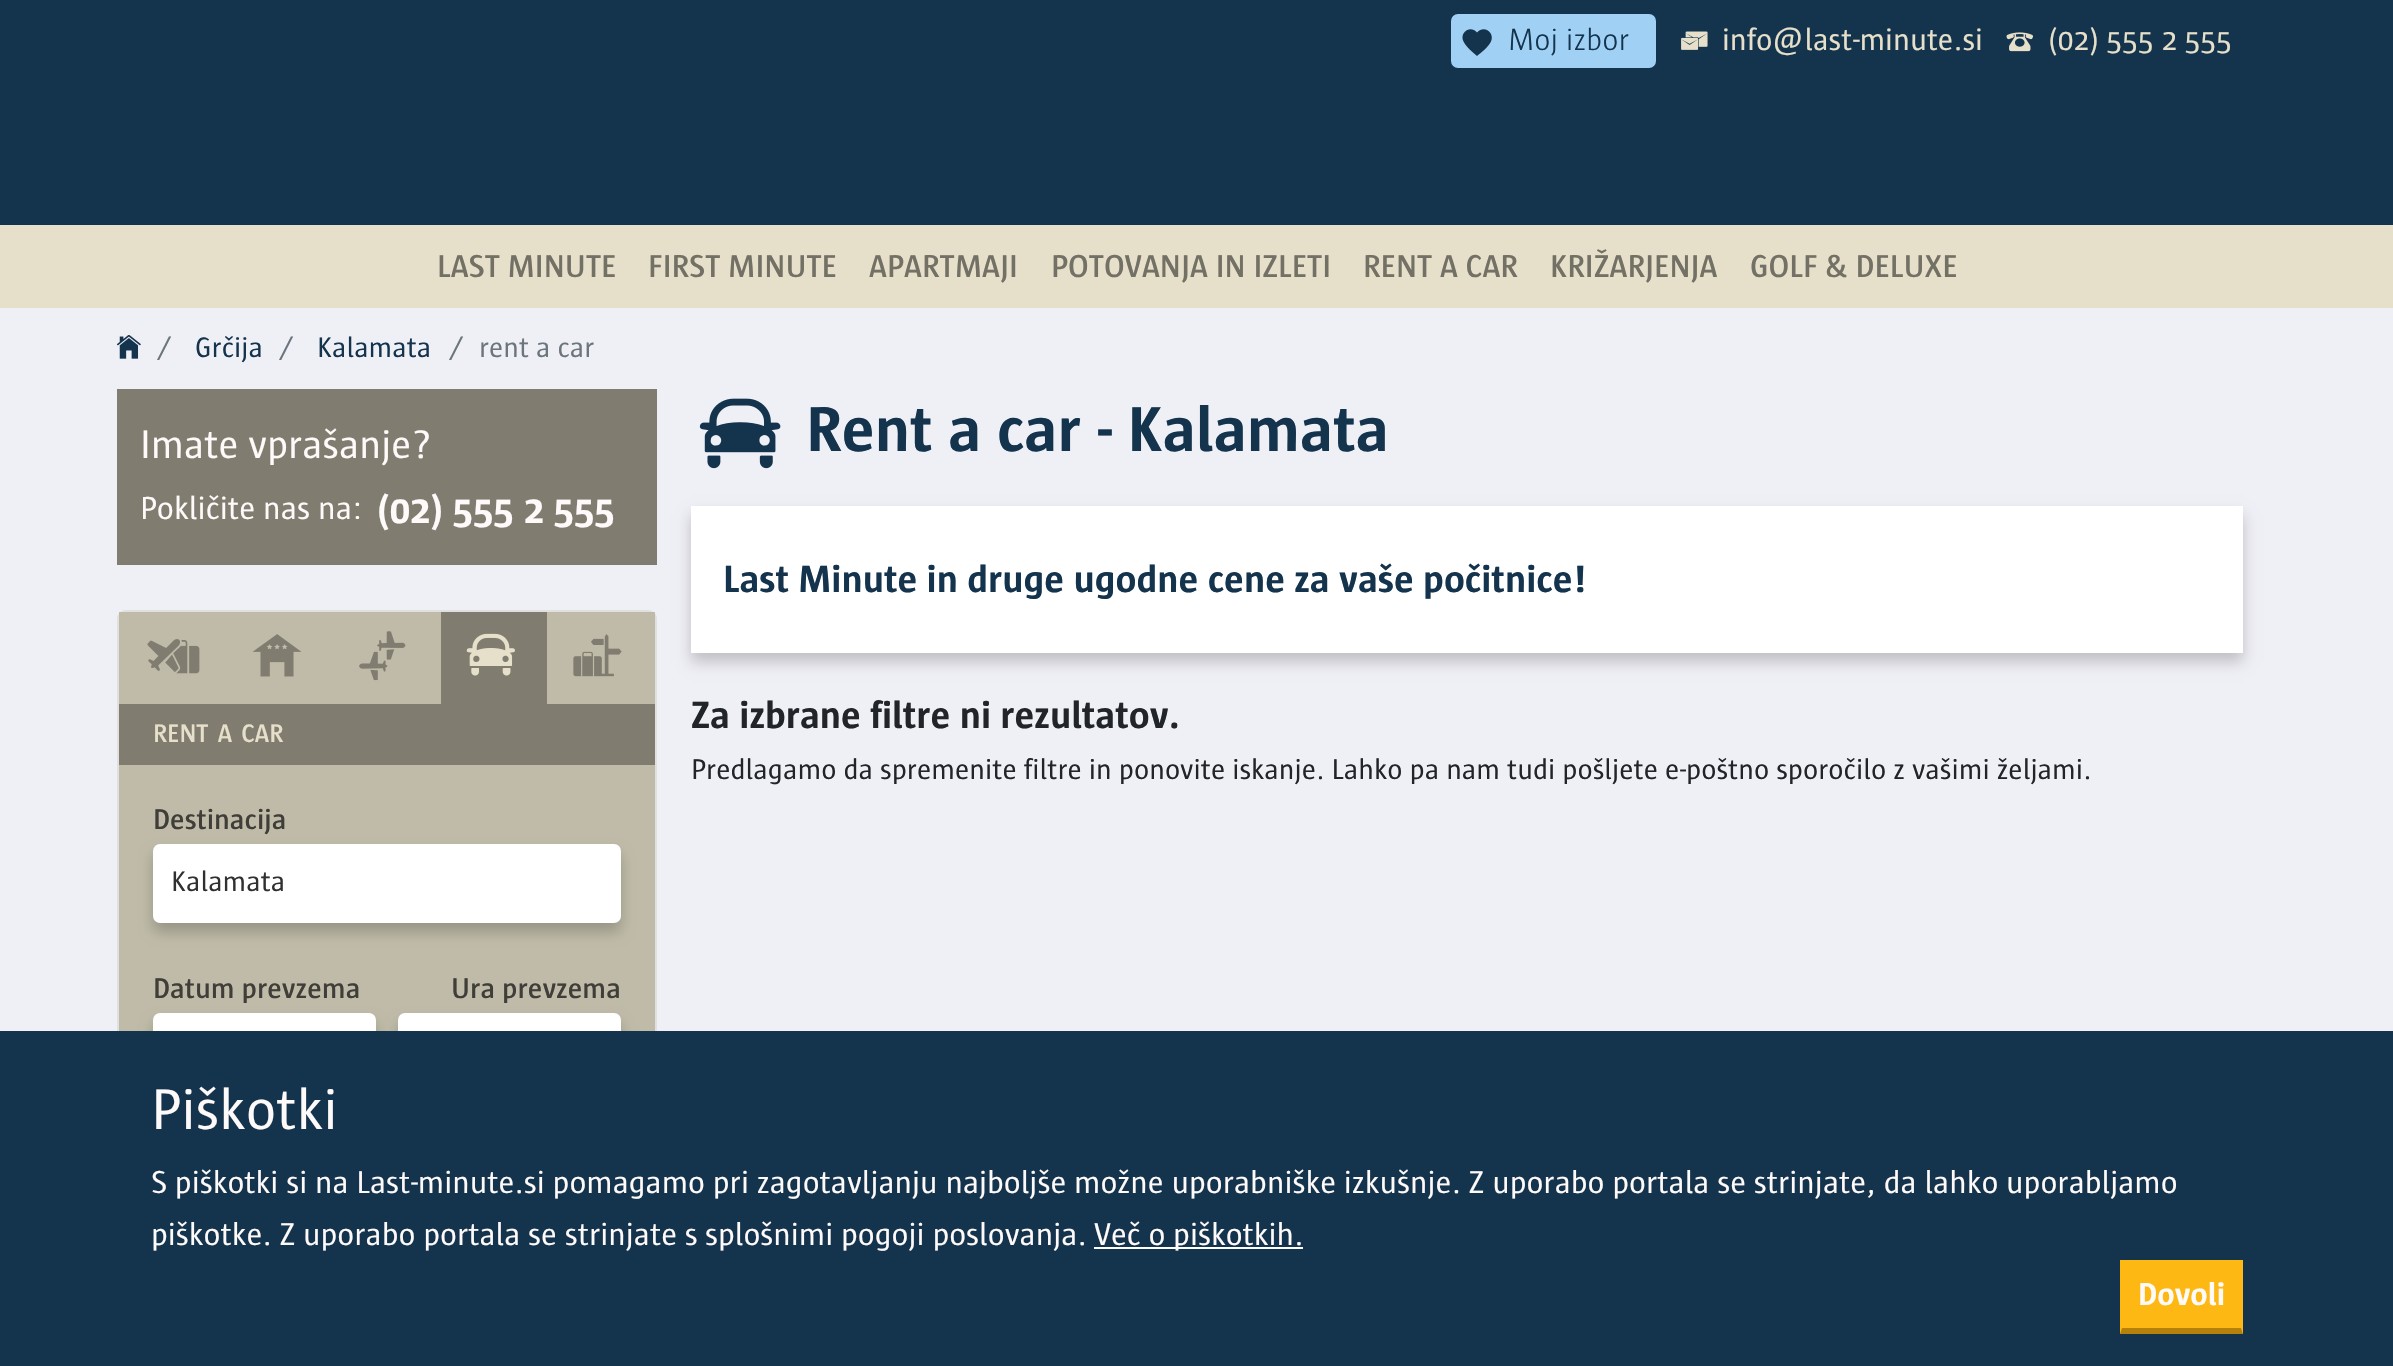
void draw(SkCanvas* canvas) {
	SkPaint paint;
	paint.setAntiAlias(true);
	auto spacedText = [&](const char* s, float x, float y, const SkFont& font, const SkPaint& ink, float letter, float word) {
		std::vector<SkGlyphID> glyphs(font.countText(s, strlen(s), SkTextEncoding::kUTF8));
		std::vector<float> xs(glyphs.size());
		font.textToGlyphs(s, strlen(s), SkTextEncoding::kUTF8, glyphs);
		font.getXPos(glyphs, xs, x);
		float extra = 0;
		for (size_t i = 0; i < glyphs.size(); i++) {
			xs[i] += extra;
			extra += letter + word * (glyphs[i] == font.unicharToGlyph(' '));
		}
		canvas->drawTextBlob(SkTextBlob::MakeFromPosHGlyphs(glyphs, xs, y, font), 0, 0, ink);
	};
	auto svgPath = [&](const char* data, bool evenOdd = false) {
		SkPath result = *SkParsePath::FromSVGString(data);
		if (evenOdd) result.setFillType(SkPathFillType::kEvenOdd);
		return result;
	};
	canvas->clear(0xffefeff6);
	paint.setColor(0xff14334d);
	canvas->drawRect(SkRect::MakeXYWH(0, 0, 2393, 225), paint);
	paint.setColor(0xffa0d1f5);
	canvas->drawRoundRect(SkRect::MakeXYWH(1451, 14, 205, 54), 7, 7, paint);
	paint.setColor(0xff14334d);
	canvas->drawPath(svgPath("M1477 56C1473 52.5 1466 47 1463.5 41.5C1459 32.5 1470.5 24.5 1477 32.5C1484 24.5 1495 32.5 1491 41.5C1488.5 47 1481.5 52.5 1477 56Z"), paint);
	SkFont f1(fontMgr->matchFamilyStyle("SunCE", SkFontStyle(300, SkFontStyle::kNormal_Width, SkFontStyle::kUpright_Slant)), 31.5);
	f1.setSubpixel(true);
	canvas->drawString("Moj izbor", 1508, 50, f1, paint);
	canvas->drawImageRect(SkImages::DeferredFromEncodedData(SkData::MakeFromFileName("img1.png")), SkRect::MakeXYWH(1681, 31, 27, 19), SkSamplingOptions());
	SkFont f2(fontMgr->matchFamilyStyle("SunCE", SkFontStyle::Normal()), 31.5);
	f2.setSubpixel(true);
	paint.setColor(0xffe6e0ca);
	canvas->drawString("info@last-minute.si", 1722, 50, f2, paint);
	canvas->drawImageRect(SkImages::DeferredFromEncodedData(SkData::MakeFromFileName("img2.png")), SkRect::MakeXYWH(2006, 32, 27, 20), SkSamplingOptions());
	canvas->drawString("(02) 555 2 555", 2048, 50, f2, paint);
	canvas->drawRect(SkRect::MakeXYWH(0, 225, 2393, 83), paint);
	SkFont f3(fontMgr->matchFamilyStyle("SunCE", SkFontStyle(600, SkFontStyle::kNormal_Width, SkFontStyle::kUpright_Slant)), 32.4);
	f3.setSubpixel(true);
	paint.setColor(0xff737065);
	canvas->drawString("LAST MINUTE", 437, 277, f3, paint);
	canvas->drawString("FIRST MINUTE", 648, 277, f3, paint);
	canvas->drawString("APARTMAJI", 869, 277, f3, paint);
	canvas->drawString("POTOVANJA IN IZLETI", 1051, 277, f3, paint);
	canvas->drawString("RENT A CAR", 1363, 277, f3, paint);
	canvas->drawString("KRIŽARJENJA", 1550, 277, f3, paint);
	canvas->drawString("GOLF & DELUXE", 1750, 277, f3, paint);
	canvas->drawImageRect(SkImages::DeferredFromEncodedData(SkData::MakeFromFileName("img3.png")), SkRect::MakeXYWH(117, 335, 24, 24), SkSamplingOptions());
	SkFont f4(fontMgr->matchFamilyStyle("SunCE", SkFontStyle::Normal()), 29);
	f4.setSubpixel(true);
	paint.setColor(0xff6c757d);
	canvas->drawString("/", 157, 357, f4, paint);
	paint.setColor(0xff14334d);
	canvas->drawString("Grčija", 195, 357, f4, paint);
	paint.setColor(0xff6c757d);
	canvas->drawString("/", 279, 357, f4, paint);
	paint.setColor(0xff14334d);
	canvas->drawString("Kalamata", 317, 357, f4, paint);
	paint.setColor(0xff6c757d);
	canvas->drawString("/", 449, 357, f4, paint);
	canvas->drawString("rent a car", 479, 357, f4, paint);
	paint.setColor(0xff807c70);
	canvas->drawRect(SkRect::MakeXYWH(117, 389, 540, 176), paint);
	SkFont f5(fontMgr->matchFamilyStyle("SunCE", SkFontStyle::Normal()), 40.75);
	f5.setSubpixel(true);
	paint.setColor(0xfffffafa);
	canvas->drawString("Imate vprašanje?", 140, 458, f5, paint);
	SkFont f6(fontMgr->matchFamilyStyle("SunCE", SkFontStyle::Normal()), 32.75);
	f6.setSubpixel(true);
	canvas->drawString("Pokličite nas na:", 140, 519, f6, paint);
	SkFont f7(fontMgr->matchFamilyStyle("SunCE", SkFontStyle::Bold()), 40.75);
	f7.setSubpixel(true);
	canvas->drawString("(02) 555 2 555", 377, 523, f7, paint);
	paint.setColor(0xffffffff);
	canvas->drawRoundRect(SkRect::MakeXYWH(117, 610, 540, 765), 9, 9, paint);
	paint.setStroke(true);
	paint.setStrokeWidth(2);
	paint.setColor(0x1f000000);
	canvas->drawRoundRect(SkRect::MakeXYWH(118, 611, 538, 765), 8, 8, paint);
	paint.setStroke(false);
	paint.setColor(0xffbfbba8);
	canvas->drawRect(SkRect::MakeXYWH(119, 612, 322, 92), paint);
	canvas->drawImageRect(SkImages::DeferredFromEncodedData(SkData::MakeFromFileName("img4.png")), SkRect::MakeXYWH(147, 639, 53, 35), SkSamplingOptions());
	paint.setColor(0xff807c70);
	canvas->drawRect(SkRect::MakeXYWH(441, 612, 106, 92), paint);
	canvas->drawImageRect(SkImages::DeferredFromEncodedData(SkData::MakeFromFileName("img5.png")), SkRect::MakeXYWH(466, 633, 49, 43), SkSamplingOptions());
	paint.setColor(0xffbfbba8);
	canvas->drawRect(SkRect::MakeXYWH(547, 612, 108, 92), paint);
	canvas->drawImageRect(SkImages::DeferredFromEncodedData(SkData::MakeFromFileName("img6.png")), SkRect::MakeXYWH(573, 634, 49, 43), SkSamplingOptions());
	canvas->drawImageRect(SkImages::DeferredFromEncodedData(SkData::MakeFromFileName("img7.png")), SkRect::MakeXYWH(252, 634, 50, 43), SkSamplingOptions());
	canvas->drawImageRect(SkImages::DeferredFromEncodedData(SkData::MakeFromFileName("img8.png")), SkRect::MakeXYWH(359, 631, 47, 50), SkSamplingOptions());
	paint.setColor(0xff807c70);
	canvas->drawRect(SkRect::MakeXYWH(119, 704, 536, 61), paint);
	SkFont f8(fontMgr->matchFamilyStyle("SunCE", SkFontStyle(600, SkFontStyle::kNormal_Width, SkFontStyle::kUpright_Slant)), 26);
	f8.setSubpixel(true);
	paint.setColor(0xffe6e0ca);
	spacedText("RENT A CAR", 153, 742, f8, paint, 0, 3);
	paint.setColor(0xffbfbba8);
	canvas->drawRect(SkRect::MakeXYWH(119, 765, 536, 266), paint);
	SkFont f9(fontMgr->matchFamilyStyle("SunCE", SkFontStyle(600, SkFontStyle::kNormal_Width, SkFontStyle::kUpright_Slant)), 29.15);
	f9.setSubpixel(true);
	paint.setColor(0xff403e38);
	canvas->drawString("Destinacija", 153, 829, f9, paint);
	paint.setColor(0x33000000);
	paint.setMaskFilter(SkMaskFilter::MakeBlur(kNormal_SkBlurStyle, 7));
	canvas->drawRoundRect(SkRect::MakeXYWH(153, 853, 468, 79), 7, 7, paint);
	paint.setMaskFilter(nullptr);
	paint.setColor(0xffffffff);
	canvas->drawRoundRect(SkRect::MakeXYWH(153, 844, 468, 79), 7, 7, paint);
	paint.setColor(0xff303030);
	canvas->drawString("Kalamata", 171, 891, f4, paint);
	paint.setColor(0xff403e38);
	canvas->drawString("Datum prevzema", 153, 998, f9, paint);
	canvas->drawString("Ura prevzema", 451, 998, f9, paint);
	paint.setColor(0x33000000);
	paint.setMaskFilter(SkMaskFilter::MakeBlur(kNormal_SkBlurStyle, 7));
	canvas->drawRoundRect(SkRect::MakeXYWH(153, 1022, 223, 78), 7, 7, paint);
	paint.setMaskFilter(nullptr);
	paint.setColor(0xffffffff);
	canvas->drawRoundRect(SkRect::MakeXYWH(153, 1013, 223, 78), 7, 7, paint);
	paint.setColor(0x33000000);
	paint.setMaskFilter(SkMaskFilter::MakeBlur(kNormal_SkBlurStyle, 7));
	canvas->drawRoundRect(SkRect::MakeXYWH(398, 1022, 223, 78), 7, 7, paint);
	paint.setMaskFilter(nullptr);
	paint.setColor(0xffffffff);
	canvas->drawRoundRect(SkRect::MakeXYWH(398, 1013, 223, 78), 7, 7, paint);
	canvas->drawImageRect(SkImages::DeferredFromEncodedData(SkData::MakeFromFileName("img9.png")), SkRect::MakeXYWH(699, 398, 82, 71), SkSamplingOptions());
	SkFont f10(fontMgr->matchFamilyStyle("SunCE", SkFontStyle::Bold()), 64.75);
	f10.setSubpixel(true);
	paint.setColor(0xff14334d);
	canvas->drawString("Rent a car - Kalamata", 806, 451, f10, paint);
	paint.setColor(0x33000000);
	paint.setMaskFilter(SkMaskFilter::MakeBlur(kNormal_SkBlurStyle, 7));
	canvas->drawRect(SkRect::MakeXYWH(691, 515, 1552, 147), paint);
	paint.setMaskFilter(nullptr);
	paint.setColor(0xffffffff);
	canvas->drawRect(SkRect::MakeXYWH(691, 506, 1552, 147), paint);
	SkFont f11(fontMgr->matchFamilyStyle("SunCE", SkFontStyle::Bold()), 38.9);
	f11.setSubpixel(true);
	paint.setColor(0xff14334d);
	canvas->drawString("Last Minute in druge ugodne cene za vaše počitnice!", 723, 592, f11, paint);
	paint.setColor(0xff212529);
	canvas->drawString("Za izbrane filtre ni rezultatov.", 691, 728, f11, paint);
	SkFont f12(fontMgr->matchFamilyStyle("SunCE", SkFontStyle::Normal()), 29.15);
	f12.setSubpixel(true);
	canvas->drawString("Predlagamo da spremenite filtre in ponovite iskanje. Lahko pa nam tudi pošljete e-poštno sporočilo z vašimi željami.", 691, 779, f12, paint);
	paint.setColor(0xff14334d);
	canvas->drawRect(SkRect::MakeXYWH(0, 1031, 2393, 335), paint);
	SkFont f13(fontMgr->matchFamilyStyle("SunCE", SkFontStyle::Normal()), 58.5);
	f13.setSubpixel(true);
	paint.setColor(0xfffffafa);
	canvas->drawString("Piškotki", 151, 1129, f13, paint);
	SkFont f14(fontMgr->matchFamilyStyle("SunCE", SkFontStyle::Normal()), 32.4);
	f14.setSubpixel(true);
	canvas->drawString("S piškotki si na Last-minute.si pomagamo pri zagotavljanju najboljše možne uporabniške izkušnje. Z uporabo portala se strinjate, da lahko uporabljamo", 151, 1193, f14, paint);
	canvas->drawString("piškotke. Z uporabo portala se strinjate s", 151, 1245, f14, paint);
	canvas->drawString("splošnimi pogoji poslovanja.", 705, 1245, f14, paint);
	paint.setColor(0xffffffff);
	canvas->drawRect(SkRect::MakeXYWH(1094, 1247, 209, 2), paint);
	paint.setColor(0xfffffafa);
	canvas->drawString("Več o piškotkih.", 1094, 1245, f14, paint);
	paint.setColor(0xfffdb813);
	canvas->drawRect(SkRect::MakeXYWH(2120, 1260, 123, 74), paint);
	paint.setColor(0xffb5810a);
	canvas->drawPath(svgPath("M2243 1334H2120L2122 1328H2241Z"), paint);
	SkFont f15(fontMgr->matchFamilyStyle("SunCE", SkFontStyle::Bold()), 32.4);
	f15.setSubpixel(true);
	paint.setColor(0xfffffafa);
	canvas->drawString("Dovoli", 2138, 1305, f15, paint);
}
